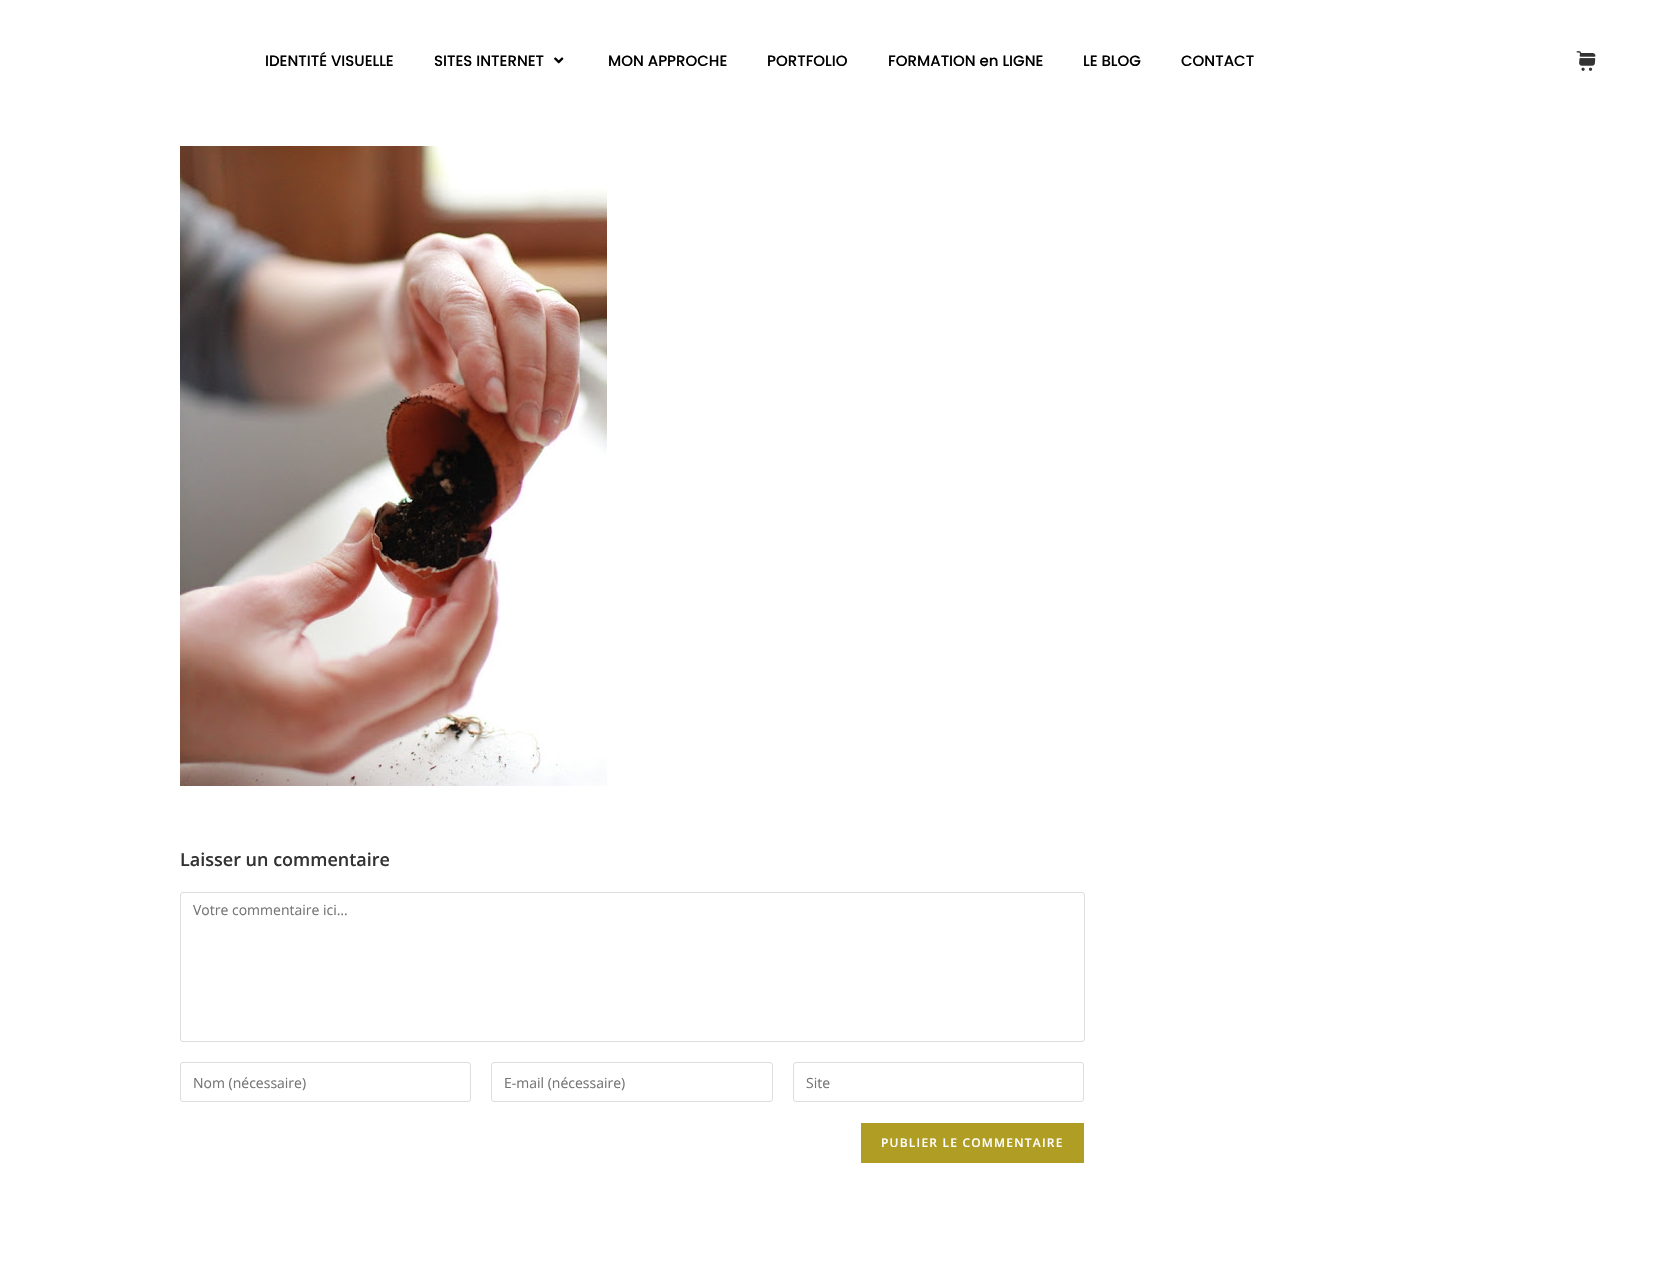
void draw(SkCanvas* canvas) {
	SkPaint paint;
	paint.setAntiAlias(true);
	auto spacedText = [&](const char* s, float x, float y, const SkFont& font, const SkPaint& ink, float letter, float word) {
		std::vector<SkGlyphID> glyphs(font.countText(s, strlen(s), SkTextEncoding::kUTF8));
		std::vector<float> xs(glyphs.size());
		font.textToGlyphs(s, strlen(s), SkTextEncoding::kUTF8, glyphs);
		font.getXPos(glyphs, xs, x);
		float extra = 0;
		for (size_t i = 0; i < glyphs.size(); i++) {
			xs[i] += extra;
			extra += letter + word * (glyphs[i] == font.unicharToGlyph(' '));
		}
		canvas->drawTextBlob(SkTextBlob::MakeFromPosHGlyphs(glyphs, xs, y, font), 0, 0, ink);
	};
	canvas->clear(0xffffffff);
	SkFont f1(fontMgr->matchFamilyStyle("Poppins", SkFontStyle(500, SkFontStyle::kNormal_Width, SkFontStyle::kUpright_Slant)), 15);
	f1.setSubpixel(true);
	paint.setColor(0xff000000);
	canvas->drawString("IDENTITÉ VISUELLE", 265, 66, f1, paint);
	canvas->drawString("SITES INTERNET", 434, 66, f1, paint);
	canvas->drawImageRect(SkImages::DeferredFromEncodedData(SkData::MakeFromFileName("img1.png")), SkRect::MakeXYWH(554, 57, 10, 7), SkSamplingOptions());
	canvas->drawString("MON APPROCHE", 608, 66, f1, paint);
	canvas->drawString("PORTFOLIO", 767, 66, f1, paint);
	canvas->drawString("FORMATION en LIGNE", 888, 66, f1, paint);
	canvas->drawString("LE BLOG", 1083, 66, f1, paint);
	canvas->drawString("CONTACT", 1181, 66, f1, paint);
	canvas->drawImageRect(SkImages::DeferredFromEncodedData(SkData::MakeFromFileName("img2.png")), SkRect::MakeXYWH(1576, 51, 20, 20), SkSamplingOptions());
	canvas->drawImageRect(SkImages::DeferredFromEncodedData(SkData::MakeFromFileName("img3.png")), SkRect::MakeXYWH(180, 146, 427, 640), SkSamplingOptions());
	SkFont f2(fontMgr->matchFamilyStyle("Open Sans", SkFontStyle(600, SkFontStyle::kNormal_Width, SkFontStyle::kUpright_Slant)), 18);
	f2.setSubpixel(true);
	paint.setColor(0xff333333);
	canvas->drawString("Laisser un commentaire", 180, 866, f2, paint);
	paint.setStroke(true);
	paint.setStrokeWidth(1);
	paint.setColor(0xffdddddd);
	canvas->drawRoundRect(SkRect::MakeXYWH(180.5, 892.5, 904, 149), 2.5, 2.5, paint);
	SkFont f3(fontMgr->matchFamilyStyle("Open Sans", SkFontStyle::Normal()), 14);
	f3.setSubpixel(true);
	paint.setStroke(false);
	paint.setColor(0xff757575);
	canvas->drawString("Votre commentaire ici…", 193, 915, f3, paint);
	paint.setStroke(true);
	paint.setColor(0xffdddddd);
	canvas->drawRoundRect(SkRect::MakeXYWH(180.5, 1062.5, 290, 39), 2.5, 2.5, paint);
	paint.setStroke(false);
	paint.setColor(0xff757575);
	canvas->drawString("Nom (nécessaire)", 193, 1088, f3, paint);
	paint.setStroke(true);
	paint.setColor(0xffdddddd);
	canvas->drawRoundRect(SkRect::MakeXYWH(491.5, 1062.5, 281, 39), 2.5, 2.5, paint);
	paint.setStroke(false);
	paint.setColor(0xff757575);
	canvas->drawString("E-mail (nécessaire)", 504, 1088, f3, paint);
	paint.setStroke(true);
	paint.setColor(0xffdddddd);
	canvas->drawRoundRect(SkRect::MakeXYWH(793.5, 1062.5, 290, 39), 2.5, 2.5, paint);
	paint.setStroke(false);
	paint.setColor(0xff757575);
	canvas->drawString("Site", 806, 1088, f3, paint);
	paint.setColor(0xffaf9d24);
	canvas->drawRect(SkRect::MakeXYWH(861, 1123, 223, 40), paint);
	SkFont f4(fontMgr->matchFamilyStyle("Open Sans", SkFontStyle(600, SkFontStyle::kNormal_Width, SkFontStyle::kUpright_Slant)), 12);
	f4.setSubpixel(true);
	paint.setColor(0xffffffff);
	spacedText("PUBLIER LE COMMENTAIRE", 881, 1147, f4, paint, 1.2, 0);
}
